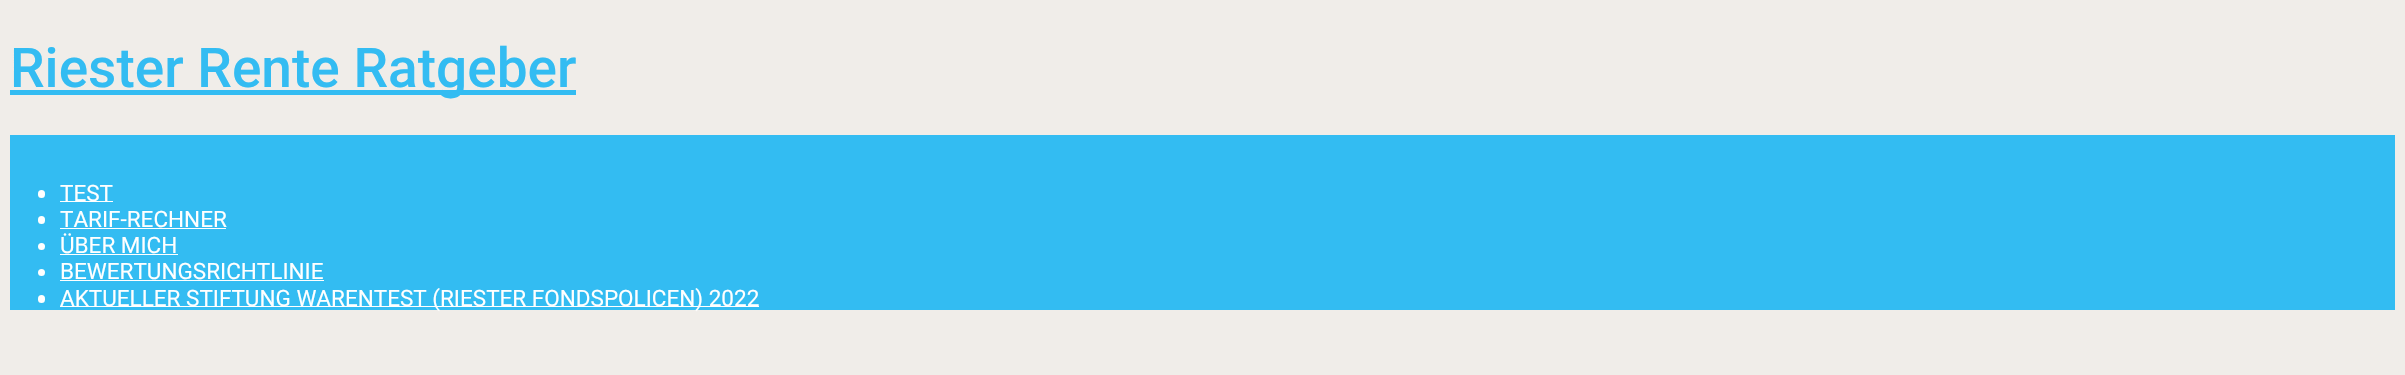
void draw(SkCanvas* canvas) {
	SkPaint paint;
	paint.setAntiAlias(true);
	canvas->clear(0xfff0ede9);
	paint.setColor(0xff33bcf2);
	canvas->drawRect(SkRect::MakeXYWH(10, 90, 566, 5), paint);
	SkFont f1(fontMgr->matchFamilyStyle("Roboto", SkFontStyle(500, SkFontStyle::kNormal_Width, SkFontStyle::kUpright_Slant)), 55);
	f1.setSubpixel(true);
	canvas->drawString("Riester Rente Ratgeber", 10, 87, f1, paint);
	canvas->drawRect(SkRect::MakeXYWH(10, 135, 2385, 175), paint);
	paint.setColor(0xffffffff);
	canvas->drawRoundRect(SkRect::MakeXYWH(38, 190, 7, 8), 3.5, 3.5, paint);
	canvas->drawRect(SkRect::MakeXYWH(60, 201, 53, 1), paint);
	SkFont f2(fontMgr->matchFamilyStyle("Roboto", SkFontStyle::Normal()), 22.5);
	f2.setSubpixel(true);
	canvas->drawString("TEST", 60, 201, f2, paint);
	canvas->drawRoundRect(SkRect::MakeXYWH(38, 216, 7, 8), 3.5, 3.5, paint);
	canvas->drawString("TARIF-RECHNER", 60, 227, f2, paint);
	canvas->drawRect(SkRect::MakeXYWH(60, 228, 166, 1), paint);
	canvas->drawCircle(41.5, 246.5, 3.5, paint);
	canvas->drawString("ÜBER MICH", 60, 253, f2, paint);
	canvas->drawRect(SkRect::MakeXYWH(60, 254, 118, 1), paint);
	canvas->drawCircle(41.5, 272.5, 3.5, paint);
	canvas->drawString("BEWERTUNGSRICHTLINIE", 60, 279, f2, paint);
	canvas->drawRect(SkRect::MakeXYWH(60, 280, 264, 1), paint);
	canvas->drawRoundRect(SkRect::MakeXYWH(38, 295, 7, 8), 3.5, 3.5, paint);
	canvas->drawRect(SkRect::MakeXYWH(60, 306, 699, 1), paint);
	canvas->drawString("AKTUELLER STIFTUNG WARENTEST (RIESTER FONDSPOLICEN) 2022", 60, 306, f2, paint);
}
